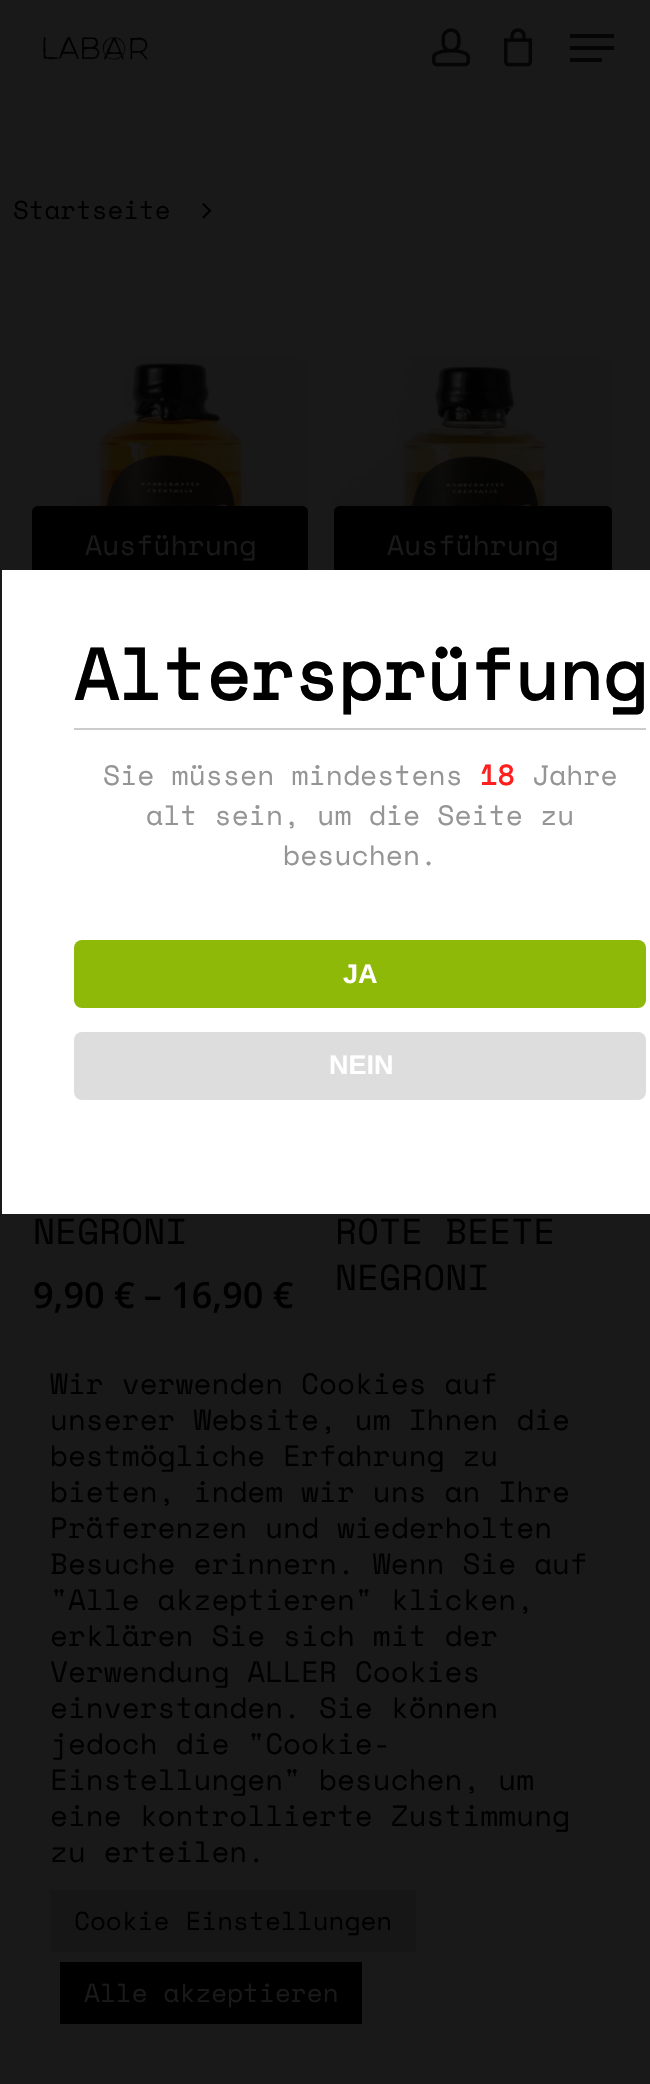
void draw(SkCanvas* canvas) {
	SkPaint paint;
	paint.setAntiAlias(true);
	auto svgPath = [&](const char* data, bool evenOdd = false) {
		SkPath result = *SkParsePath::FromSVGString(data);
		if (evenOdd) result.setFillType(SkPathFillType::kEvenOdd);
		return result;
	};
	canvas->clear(0xff191919);
	canvas->drawImageRect(SkImages::DeferredFromEncodedData(SkData::MakeFromFileName("img1.png")), SkRect::MakeXYWH(41, 36, 108, 24), SkSamplingOptions());
	canvas->drawImageRect(SkImages::DeferredFromEncodedData(SkData::MakeFromFileName("img2.png")), SkRect::MakeXYWH(432, 28, 38, 39), SkSamplingOptions());
	canvas->drawImageRect(SkImages::DeferredFromEncodedData(SkData::MakeFromFileName("img3.png")), SkRect::MakeXYWH(504, 28, 29, 39), SkSamplingOptions());
	paint.setColor(0xff050505);
	canvas->drawRect(SkRect::MakeXYWH(570, 34, 44, 4), paint);
	canvas->drawRect(SkRect::MakeXYWH(570, 58, 32, 4), paint);
	canvas->drawRect(SkRect::MakeXYWH(570, 46, 44, 4), paint);
	SkFont f1(fontMgr->matchFamilyStyle("Space Mono", SkFontStyle::Normal()), 25.75);
	f1.setSubpixel(true);
	paint.setColor(0xff000000);
	canvas->drawString("Startseite", 13, 219, f1, paint);
	canvas->drawImageRect(SkImages::DeferredFromEncodedData(SkData::MakeFromFileName("img4.png")), SkRect::MakeXYWH(202, 203, 10, 16), SkSamplingOptions());
	canvas->drawImageRect(SkImages::DeferredFromEncodedData(SkData::MakeFromFileName("img5.png")), SkRect::MakeXYWH(32, 358, 276, 154), SkSamplingOptions());
	canvas->drawPath(svgPath("M38 506H302C305.5 506 308 508.5 308 512V624C308 629.5 303.5 634 298 634H42C36.5 634 32 629.5 32 624V512C32 508.5 34.5 506 38 506Z"), paint);
	SkFont f2(fontMgr->matchFamilyStyle("Space Mono", SkFontStyle::Normal()), 28);
	f2.setSubpixel(true);
	paint.setColor(0xff191919);
	canvas->drawString("Ausführung", 85, 555, f2, paint);
	canvas->drawImageRect(SkImages::DeferredFromEncodedData(SkData::MakeFromFileName("img6.png")), SkRect::MakeXYWH(334, 358, 278, 154), SkSamplingOptions());
	paint.setColor(0xff000000);
	canvas->drawPath(svgPath("M340 506H606C609.5 506 612 508.5 612 512V624C612 629.5 607.5 634 602 634H344C338.5 634 334 629.5 334 624V512C334 508.5 336.5 506 340 506Z"), paint);
	paint.setColor(0xff191919);
	canvas->drawString("Ausführung", 387, 555, f2, paint);
	SkFont f3(fontMgr->matchFamilyStyle("Space Mono", SkFontStyle::Normal()), 36);
	f3.setSubpixel(true);
	paint.setColor(0xff000000);
	canvas->drawString("NEGRONI", 33, 1244, f3, paint);
	SkFont f4(fontMgr->matchFamilyStyle("Open Sans", SkFontStyle(600, SkFontStyle::kNormal_Width, SkFontStyle::kUpright_Slant)), 36);
	f4.setSubpixel(true);
	canvas->drawString("9,90 € – 16,90 €", 33, 1308, f4, paint);
	canvas->drawString("ROTE BEETE", 335, 1244, f3, paint);
	canvas->drawString("NEGRONI", 335, 1290, f3, paint);
	paint.setColor(0xffffffff);
	canvas->drawRect(SkRect::MakeXYWH(2, 570, 648, 644), paint);
	paint.setColor(0xffcccccc);
	canvas->drawRect(SkRect::MakeXYWH(74, 728, 572, 2), paint);
	SkFont f5(fontMgr->matchFamilyStyle("Space Mono", SkFontStyle::Bold()), 72);
	f5.setSubpixel(true);
	paint.setColor(0xff000000);
	canvas->drawString("Altersprüfung", 74, 700, f5, paint);
	paint.setColor(0xff959595);
	canvas->drawString("Sie müssen mindestens", 103, 785, f2, paint);
	SkFont f6(fontMgr->matchFamilyStyle("Space Mono", SkFontStyle::Bold()), 28);
	f6.setSubpixel(true);
	paint.setColor(0xffff1f1f);
	canvas->drawString("18", 480, 785, f6, paint);
	paint.setColor(0xff959595);
	canvas->drawString("Jahre", 532, 785, f2, paint);
	canvas->drawString("alt sein, um die Seite zu", 146, 825, f2, paint);
	canvas->drawString("besuchen.", 283, 865, f2, paint);
	paint.setColor(0xff8eb908);
	canvas->drawRoundRect(SkRect::MakeXYWH(74, 940, 572, 68), 8, 8, paint);
	SkFont f7(fontMgr->matchFamilyStyle("Liberation Sans", SkFontStyle::Bold()), 27);
	f7.setSubpixel(true);
	paint.setColor(0xffffffff);
	canvas->drawString("JA", 343, 983, f7, paint);
	paint.setColor(0xffdddddd);
	canvas->drawRoundRect(SkRect::MakeXYWH(74, 1032, 572, 68), 8, 8, paint);
	paint.setColor(0xffffffff);
	canvas->drawString("NEIN", 329, 1074, f7, paint);
	SkFont f8(fontMgr->matchFamilyStyle("Space Mono", SkFontStyle::Normal()), 29.3);
	f8.setSubpixel(true);
	paint.setColor(0xff000000);
	canvas->drawString("Wir verwenden Cookies auf", 50, 1394, f8, paint);
	canvas->drawString("unserer Website, um Ihnen die", 50, 1430, f8, paint);
	canvas->drawString("bestmögliche Erfahrung zu", 50, 1466, f8, paint);
	canvas->drawString("bieten, indem wir uns an Ihre", 50, 1502, f8, paint);
	canvas->drawString("Präferenzen und wiederholten", 50, 1538, f8, paint);
	canvas->drawString("Besuche erinnern. Wenn Sie auf", 50, 1574, f8, paint);
	canvas->drawString("\"Alle akzeptieren\" klicken,", 50, 1610, f8, paint);
	canvas->drawString("erklären Sie sich mit der", 50, 1646, f8, paint);
	canvas->drawString("Verwendung ALLER Cookies", 50, 1682, f8, paint);
	canvas->drawString("einverstanden. Sie können", 50, 1718, f8, paint);
	canvas->drawString("jedoch die \"Cookie-", 50, 1754, f8, paint);
	canvas->drawString("Einstellungen\" besuchen, um", 50, 1790, f8, paint);
	canvas->drawString("eine kontrollierte Zustimmung", 50, 1826, f8, paint);
	canvas->drawString("zu erteilen.", 50, 1862, f8, paint);
	paint.setColor(0xff161616);
	canvas->drawRect(SkRect::MakeXYWH(50, 1890, 366, 62), paint);
	SkFont f9(fontMgr->matchFamilyStyle("Space Mono", SkFontStyle::Normal()), 26);
	f9.setSubpixel(true);
	paint.setColor(0xff000000);
	canvas->drawString("Cookie Einstellungen", 74, 1930, f9, paint);
	canvas->drawRect(SkRect::MakeXYWH(60, 1962, 302, 62), paint);
	paint.setColor(0xff191919);
	canvas->drawString("Alle akzeptieren", 84, 2002, f9, paint);
}
